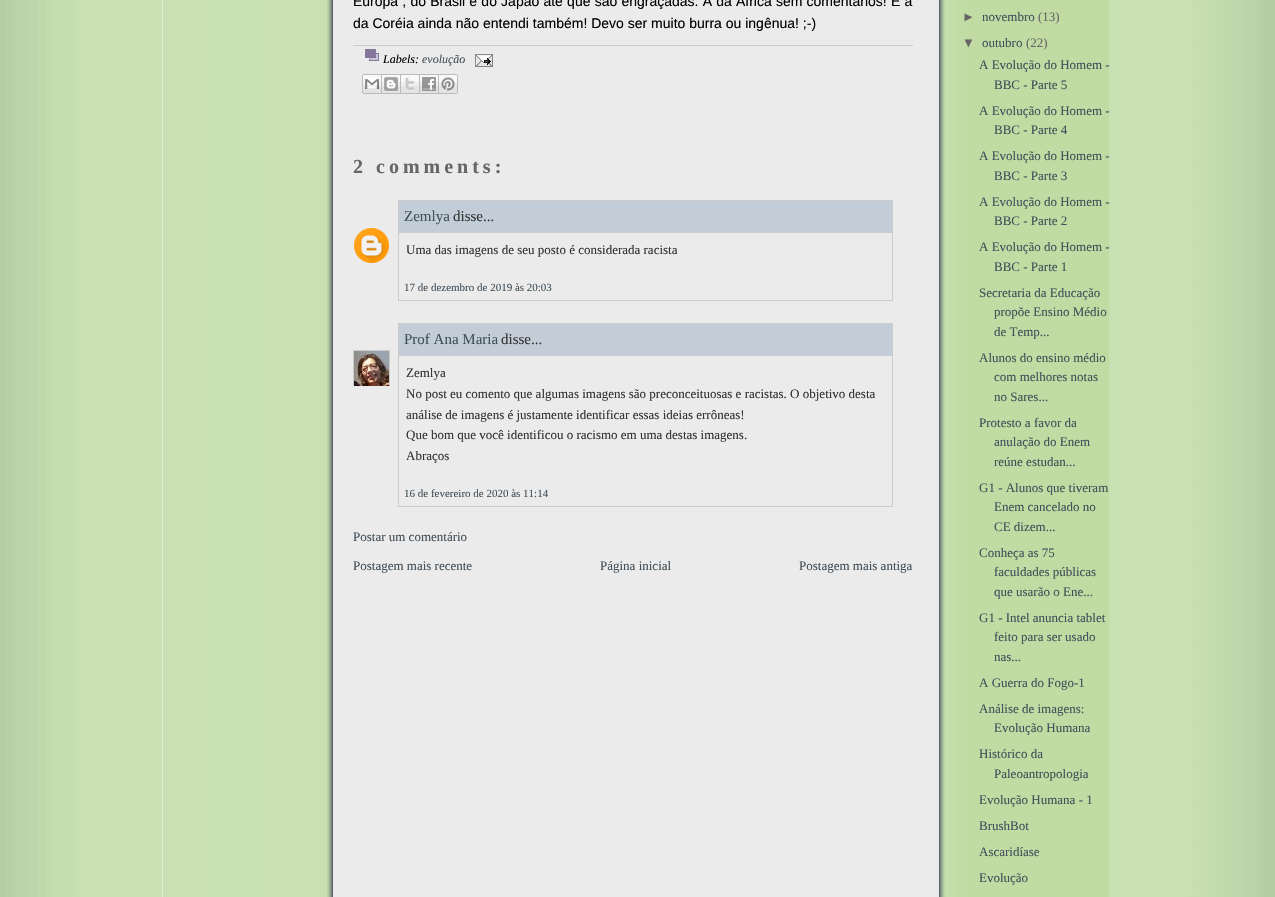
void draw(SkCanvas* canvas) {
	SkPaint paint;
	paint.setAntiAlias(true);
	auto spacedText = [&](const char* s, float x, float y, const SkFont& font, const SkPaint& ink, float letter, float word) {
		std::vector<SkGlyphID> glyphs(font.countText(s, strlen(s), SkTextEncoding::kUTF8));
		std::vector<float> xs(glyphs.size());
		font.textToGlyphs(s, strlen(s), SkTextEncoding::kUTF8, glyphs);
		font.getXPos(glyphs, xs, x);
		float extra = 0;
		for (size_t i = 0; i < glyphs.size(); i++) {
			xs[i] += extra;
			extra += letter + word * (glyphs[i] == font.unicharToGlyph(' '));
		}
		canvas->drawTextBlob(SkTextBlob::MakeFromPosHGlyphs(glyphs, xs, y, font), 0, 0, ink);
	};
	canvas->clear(0xffffffff);
	canvas->drawImageRect(SkImages::DeferredFromEncodedData(SkData::MakeFromFileName("img1.png")), SkRect::MakeXYWH(0, 0, 1275, 897), SkSamplingOptions());
	canvas->drawImageRect(SkImages::DeferredFromEncodedData(SkData::MakeFromFileName("img2.png")), SkRect::MakeXYWH(163, 0, 948, 897), SkSamplingOptions());
	SkFont f1(fontMgr->matchFamilyStyle("Liberation Sans", SkFontStyle::Normal()), 14);
	f1.setSubpixel(true);
	paint.setColor(0xff000000);
	spacedText("Europa , do Brasil e do Japão até que são engraçadas. A da África sem comentários! E a", 353, 6, f1, paint, 0, 0.3);
	canvas->drawString("da Coréia ainda não entendi também! Devo ser muito burra ou ingênua! ;-)", 353, 28, f1, paint);
	paint.setColor(0xffcccccc);
	canvas->drawRect(SkRect::MakeXYWH(353, 45, 560, 1), paint);
	canvas->drawImageRect(SkImages::DeferredFromEncodedData(SkData::MakeFromFileName("img3.png")), SkRect::MakeXYWH(363, 49, 16, 16), SkSamplingOptions());
	SkFont f2(fontMgr->matchFamilyStyle("Liberation Serif", SkFontStyle::Italic()), 12);
	f2.setSubpixel(true);
	paint.setColor(0xff000000);
	canvas->drawString("Labels:", 383, 63, f2, paint);
	paint.setColor(0xff435059);
	canvas->drawString("evolução", 422, 63, f2, paint);
	canvas->drawImageRect(SkImages::DeferredFromEncodedData(SkData::MakeFromFileName("img4.png")), SkRect::MakeXYWH(475, 54, 18, 13), SkSamplingOptions());
	canvas->drawImageRect(SkImages::DeferredFromEncodedData(SkData::MakeFromFileName("img5.png")), SkRect::MakeXYWH(362, 74, 20, 20), SkSamplingOptions());
	canvas->drawImageRect(SkImages::DeferredFromEncodedData(SkData::MakeFromFileName("img6.png")), SkRect::MakeXYWH(382, 74, 19, 20), SkSamplingOptions());
	canvas->drawImageRect(SkImages::DeferredFromEncodedData(SkData::MakeFromFileName("img7.png")), SkRect::MakeXYWH(401, 74, 19, 20), SkSamplingOptions());
	canvas->drawImageRect(SkImages::DeferredFromEncodedData(SkData::MakeFromFileName("img8.png")), SkRect::MakeXYWH(420, 74, 19, 20), SkSamplingOptions());
	canvas->drawImageRect(SkImages::DeferredFromEncodedData(SkData::MakeFromFileName("img9.png")), SkRect::MakeXYWH(439, 74, 19, 20), SkSamplingOptions());
	SkFont f3(fontMgr->matchFamilyStyle("Liberation Serif", SkFontStyle::Bold()), 20);
	f3.setSubpixel(true);
	paint.setColor(0xff666666);
	spacedText("2 comments:", 353, 173, f3, paint, 4, 0);
	paint.setColor(0xffc2cdd7);
	canvas->drawRect(SkRect::MakeXYWH(398.5, 200.5, 494, 32), paint);
	paint.setStroke(true);
	paint.setStrokeWidth(1);
	paint.setColor(0xffcccccc);
	canvas->drawRect(SkRect::MakeXYWH(398.5, 200.5, 494, 32), paint);
	SkFont f4(fontMgr->matchFamilyStyle("Liberation Serif", SkFontStyle::Normal()), 15);
	f4.setSubpixel(true);
	paint.setStroke(false);
	paint.setColor(0xff435059);
	canvas->drawString("Zemlya", 404, 221, f4, paint);
	paint.setColor(0xff333333);
	canvas->drawString("disse...", 453, 221, f4, paint);
	canvas->drawImageRect(SkImages::DeferredFromEncodedData(SkData::MakeFromFileName("img10.png")), SkRect::MakeXYWH(354, 228, 35, 35), SkSamplingOptions());
	paint.setColor(0xffcccccc);
	canvas->drawRect(SkRect::MakeXYWH(892, 233, 1, 68), paint);
	canvas->drawRect(SkRect::MakeXYWH(398, 233, 1, 45), paint);
	SkFont f5(fontMgr->matchFamilyStyle("Liberation Serif", SkFontStyle::Normal()), 13);
	f5.setSubpixel(true);
	paint.setColor(0xff333333);
	canvas->drawString("Uma das imagens de seu posto é considerada racista", 406, 254, f5, paint);
	paint.setColor(0xffcccccc);
	canvas->drawRect(SkRect::MakeXYWH(398, 300, 495, 1), paint);
	canvas->drawRect(SkRect::MakeXYWH(398, 275, 1, 26), paint);
	SkFont f6(fontMgr->matchFamilyStyle("Liberation Serif", SkFontStyle::Normal()), 11);
	f6.setSubpixel(true);
	paint.setColor(0xff435059);
	canvas->drawString("17 de dezembro de 2019 às 20:03", 404, 291, f6, paint);
	paint.setColor(0xffc2cdd7);
	canvas->drawRect(SkRect::MakeXYWH(398.5, 323.5, 494, 32), paint);
	paint.setStroke(true);
	paint.setColor(0xffcccccc);
	canvas->drawRect(SkRect::MakeXYWH(398.5, 323.5, 494, 32), paint);
	paint.setStroke(false);
	paint.setColor(0xff435059);
	canvas->drawString("Prof Ana Maria", 404, 344, f4, paint);
	paint.setColor(0xff333333);
	canvas->drawString("disse...", 501, 344, f4, paint);
	canvas->save();
	canvas->clipRect(SkRect::MakeXYWH(353, 350, 37, 36));
	paint.setStroke(true);
	paint.setColor(0xffcccccc);
	canvas->drawRect(SkRect::MakeXYWH(353.5, 350.5, 36, 36), paint);
	canvas->restore();
	canvas->drawImageRect(SkImages::DeferredFromEncodedData(SkData::MakeFromFileName("img11.png")), SkRect::MakeXYWH(354, 351, 35, 35), SkSamplingOptions());
	paint.setStroke(false);
	canvas->drawRect(SkRect::MakeXYWH(892, 356, 1, 151), paint);
	canvas->drawRect(SkRect::MakeXYWH(398, 356, 1, 128), paint);
	paint.setColor(0xff333333);
	canvas->drawString("Zemlya", 406, 377, f5, paint);
	canvas->drawString("No post eu comento que algumas imagens são preconceituosas e racistas. O objetivo desta", 406, 398, f5, paint);
	canvas->drawString("análise de imagens é justamente identificar essas ideias errôneas!", 406, 419, f5, paint);
	canvas->drawString("Que bom que você identificou o racismo em uma destas imagens.", 406, 439, f5, paint);
	canvas->drawString("Abraços", 406, 460, f5, paint);
	paint.setColor(0xffcccccc);
	canvas->drawRect(SkRect::MakeXYWH(398, 506, 495, 1), paint);
	canvas->drawRect(SkRect::MakeXYWH(398, 481, 1, 26), paint);
	paint.setColor(0xff435059);
	canvas->drawString("16 de fevereiro de 2020 às 11:14", 404, 497, f6, paint);
	canvas->drawString("Postar um comentário", 353, 541, f5, paint);
	canvas->drawString("Postagem mais recente", 353, 570, f5, paint);
	canvas->drawString("Página inicial", 600, 570, f5, paint);
	canvas->drawString("Postagem mais antiga", 799, 570, f5, paint);
	canvas->drawImageRect(SkImages::DeferredFromEncodedData(SkData::MakeFromFileName("img12.png")), SkRect::MakeXYWH(940, 0, 169, 897), SkSamplingOptions());
	SkFont f7(fontMgr->matchFamilyStyle("Liberation Sans", SkFontStyle::Normal()), 13);
	f7.setSubpixel(true);
	paint.setColor(0xff666666);
	canvas->drawString("►", 962, 21, f7, paint);
	paint.setColor(0xff435059);
	canvas->drawString("novembro", 982, 21, f5, paint);
	paint.setColor(0xff666666);
	canvas->drawString("(13)", 1038, 21, f5, paint);
	canvas->drawString("▼", 962, 47, f7, paint);
	paint.setColor(0xff435059);
	canvas->drawString("outubro", 982, 47, f5, paint);
	paint.setColor(0xff666666);
	canvas->drawString("(22)", 1026, 47, f5, paint);
	paint.setColor(0xff435059);
	canvas->drawString("A Evolução do Homem -", 979, 69, f5, paint);
	canvas->drawString("BBC - Parte 5", 994, 89, f5, paint);
	canvas->drawString("A Evolução do Homem -", 979, 115, f5, paint);
	canvas->drawString("BBC - Parte 4", 994, 134, f5, paint);
	canvas->drawString("A Evolução do Homem -", 979, 160, f5, paint);
	canvas->drawString("BBC - Parte 3", 994, 180, f5, paint);
	canvas->drawString("A Evolução do Homem -", 979, 206, f5, paint);
	canvas->drawString("BBC - Parte 2", 994, 225, f5, paint);
	canvas->drawString("A Evolução do Homem -", 979, 251, f5, paint);
	canvas->drawString("BBC - Parte 1", 994, 271, f5, paint);
	canvas->drawString("Secretaria da Educação", 979, 297, f5, paint);
	canvas->drawString("propõe Ensino Médio", 994, 316, f5, paint);
	canvas->drawString("de Temp...", 994, 336, f5, paint);
	canvas->drawString("Alunos do ensino médio", 979, 362, f5, paint);
	canvas->drawString("com melhores notas", 994, 381, f5, paint);
	canvas->drawString("no Sares...", 994, 401, f5, paint);
	canvas->drawString("Protesto a favor da", 979, 427, f5, paint);
	canvas->drawString("anulação do Enem", 994, 446, f5, paint);
	canvas->drawString("reúne estudan...", 994, 466, f5, paint);
	canvas->drawString("G1 - Alunos que tiveram", 979, 492, f5, paint);
	canvas->drawString("Enem cancelado no", 994, 511, f5, paint);
	canvas->drawString("CE dizem...", 994, 531, f5, paint);
	canvas->drawString("Conheça as 75", 979, 557, f5, paint);
	canvas->drawString("faculdades públicas", 994, 576, f5, paint);
	canvas->drawString("que usarão o Ene...", 994, 596, f5, paint);
	canvas->drawString("G1 - Intel anuncia tablet", 979, 622, f5, paint);
	canvas->drawString("feito para ser usado", 994, 641, f5, paint);
	canvas->drawString("nas...", 994, 661, f5, paint);
	canvas->drawString("A Guerra do Fogo-1", 979, 687, f5, paint);
	canvas->drawString("Análise de imagens:", 979, 713, f5, paint);
	canvas->drawString("Evolução Humana", 994, 732, f5, paint);
	canvas->drawString("Histórico da", 979, 758, f5, paint);
	canvas->drawString("Paleoantropologia", 994, 778, f5, paint);
	canvas->drawString("Evolução Humana - 1", 979, 804, f5, paint);
	canvas->drawString("BrushBot", 979, 830, f5, paint);
	canvas->drawString("Ascaridíase", 979, 856, f5, paint);
	canvas->drawString("Evolução", 979, 882, f5, paint);
}
